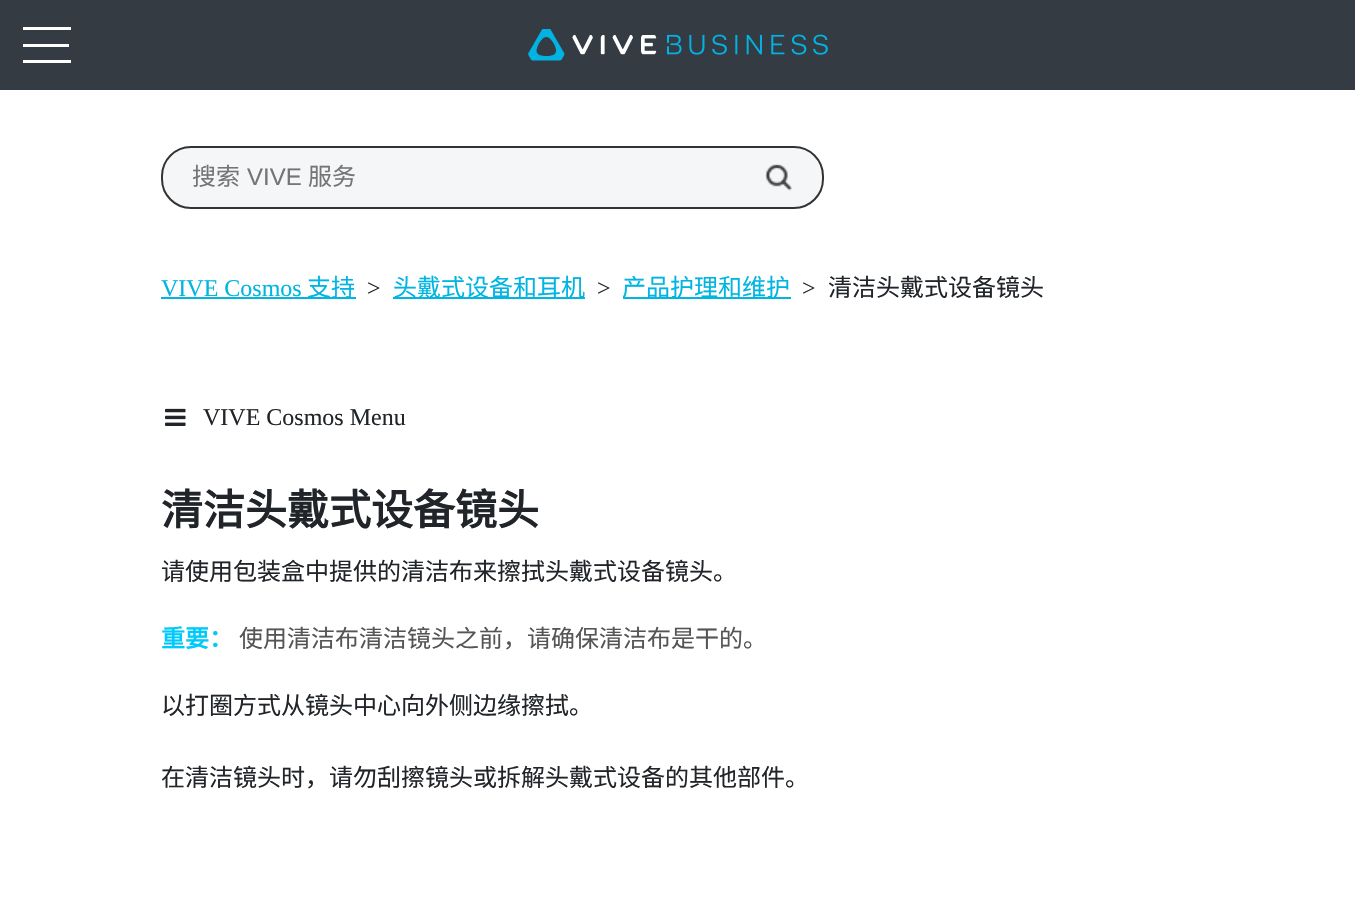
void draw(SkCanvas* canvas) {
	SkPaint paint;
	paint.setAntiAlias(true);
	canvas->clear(0xffffffff);
	paint.setColor(0xff353b42);
	canvas->drawRect(SkRect::MakeXYWH(0, 0, 1355, 90), paint);
	paint.setColor(0xffffffff);
	canvas->drawRect(SkRect::MakeXYWH(23, 44, 46, 3), paint);
	canvas->drawRect(SkRect::MakeXYWH(23, 27, 48, 3), paint);
	canvas->drawRect(SkRect::MakeXYWH(23, 60, 48, 3), paint);
	canvas->drawImageRect(SkImages::DeferredFromEncodedData(SkData::MakeFromFileName("img1.png")), SkRect::MakeXYWH(528, 29, 300, 32), SkSamplingOptions());
	paint.setColor(0xfff4f6f8);
	canvas->drawRoundRect(SkRect::MakeXYWH(162, 147, 661, 61), 29, 29, paint);
	paint.setStroke(true);
	paint.setStrokeWidth(2);
	paint.setColor(0xff333333);
	canvas->drawRoundRect(SkRect::MakeXYWH(162, 147, 661, 61), 29, 29, paint);
	SkFont f1(fontMgr->matchFamilyStyle("Noto Sans CJK SC", SkFontStyle::Normal()), 24);
	f1.setSubpixel(true);
	paint.setStroke(false);
	paint.setColor(0xff757575);
	canvas->drawString("搜索", 192, 185, f1, paint);
	SkFont f2(fontMgr->matchFamilyStyle("Liberation Sans", SkFontStyle::Normal()), 24);
	f2.setSubpixel(true);
	canvas->drawString("VIVE", 247, 185, f2, paint);
	canvas->drawString("服务", 308, 185, f1, paint);
	canvas->drawImageRect(SkImages::DeferredFromEncodedData(SkData::MakeFromFileName("img2.png")), SkRect::MakeXYWH(765, 164, 27, 27), SkSamplingOptions());
	SkFont f3(fontMgr->matchFamilyStyle("Liberation Serif", SkFontStyle::Normal()), 24);
	f3.setSubpixel(true);
	paint.setColor(0xff00b5e2);
	canvas->drawString("VIVE Cosmos", 161, 296, f3, paint);
	canvas->drawRect(SkRect::MakeXYWH(161, 297, 195, 2), paint);
	canvas->drawString("支持", 307, 296, f1, paint);
	paint.setColor(0xff212529);
	canvas->drawString(">", 367, 296, f3, paint);
	paint.setColor(0xff00b5e2);
	canvas->drawRect(SkRect::MakeXYWH(393, 297, 192, 2), paint);
	canvas->drawString("头戴式设备和耳机", 393, 296, f1, paint);
	paint.setColor(0xff212529);
	canvas->drawString(">", 597, 296, f3, paint);
	paint.setColor(0xff00b5e2);
	canvas->drawRect(SkRect::MakeXYWH(623, 297, 168, 2), paint);
	canvas->drawString("产品护理和维护", 622, 296, f1, paint);
	paint.setColor(0xff212529);
	canvas->drawString(">", 802, 296, f3, paint);
	canvas->drawString("清洁头戴式设备镜头", 828, 296, f1, paint);
	canvas->drawImageRect(SkImages::DeferredFromEncodedData(SkData::MakeFromFileName("img3.png")), SkRect::MakeXYWH(165, 408, 21, 18), SkSamplingOptions());
	canvas->drawString("VIVE Cosmos Menu", 203, 425, f3, paint);
	SkFont f4(fontMgr->matchFamilyStyle("Noto Sans CJK SC", SkFontStyle::Bold()), 42);
	f4.setSubpixel(true);
	canvas->drawString("清洁头戴式设备镜头", 161, 525, f4, paint);
	canvas->drawString("请使用包装盒中提供的清洁布来擦拭头戴式设备镜头。", 161, 580, f1, paint);
	SkFont f5(fontMgr->matchFamilyStyle("Noto Sans CJK SC", SkFontStyle::Bold()), 24);
	f5.setSubpixel(true);
	paint.setColor(0xff00c9fb);
	canvas->drawString("重要：", 161, 647, f5, paint);
	paint.setColor(0xff555555);
	canvas->drawString("使用清洁布清洁镜头之前，请确保清洁布是干的。", 239, 647, f1, paint);
	paint.setColor(0xff212529);
	canvas->drawString("以打圈方式从镜头中心向外侧边缘擦拭。", 161, 714, f1, paint);
	canvas->drawString("在清洁镜头时，请勿刮擦镜头或拆解头戴式设备的其他部件。", 161, 786, f1, paint);
}
